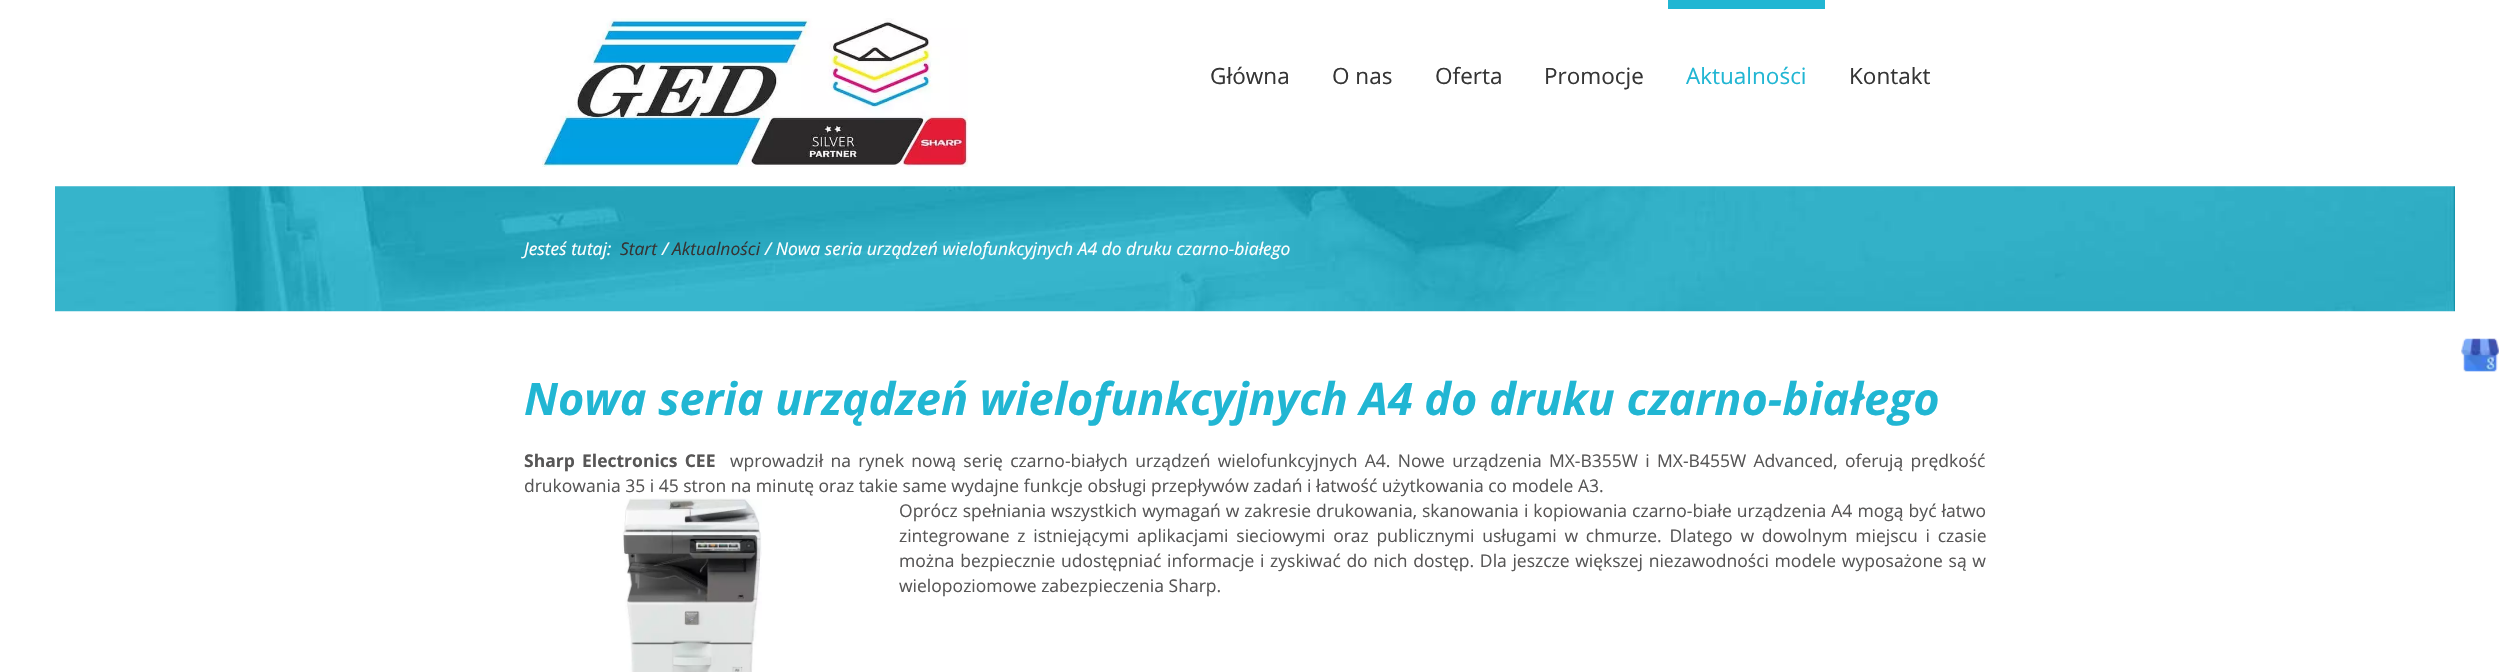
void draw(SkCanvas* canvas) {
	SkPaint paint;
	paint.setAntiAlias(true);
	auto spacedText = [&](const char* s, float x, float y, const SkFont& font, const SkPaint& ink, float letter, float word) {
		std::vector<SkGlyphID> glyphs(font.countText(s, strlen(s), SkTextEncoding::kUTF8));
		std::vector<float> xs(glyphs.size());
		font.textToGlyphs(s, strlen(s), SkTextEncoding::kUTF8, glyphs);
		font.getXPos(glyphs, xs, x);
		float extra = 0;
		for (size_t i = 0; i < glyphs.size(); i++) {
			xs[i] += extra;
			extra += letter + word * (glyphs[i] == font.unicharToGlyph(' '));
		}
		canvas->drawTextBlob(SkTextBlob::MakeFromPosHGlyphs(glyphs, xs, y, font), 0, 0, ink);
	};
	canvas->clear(0xffffffff);
	canvas->drawImageRect(SkImages::DeferredFromEncodedData(SkData::MakeFromFileName("img1.png")), SkRect::MakeXYWH(542, 18, 426, 149), SkSamplingOptions());
	SkFont f1(fontMgr->matchFamilyStyle("Open Sans", SkFontStyle::Normal()), 22.5);
	f1.setSubpixel(true);
	paint.setColor(0xff353535);
	canvas->drawString("Główna", 1210, 84, f1, paint);
	canvas->drawString("O nas", 1332, 84, f1, paint);
	canvas->drawString("Oferta", 1435, 84, f1, paint);
	canvas->drawString("Promocje", 1544, 84, f1, paint);
	paint.setColor(0xff21b6d3);
	canvas->drawRect(SkRect::MakeXYWH(1668, 0, 157, 9), paint);
	canvas->drawString("Aktualności", 1686, 84, f1, paint);
	paint.setColor(0xff353535);
	canvas->drawString("Kontakt", 1849, 84, f1, paint);
	canvas->drawImageRect(SkImages::DeferredFromEncodedData(SkData::MakeFromFileName("img2.png")), SkRect::MakeXYWH(55, 186, 2400, 126), SkSamplingOptions());
	SkFont f2(fontMgr->matchFamilyStyle("Open Sans", SkFontStyle::Italic()), 17.5);
	f2.setSubpixel(true);
	paint.setColor(0xffffffff);
	canvas->drawString("Jesteś tutaj:", 524, 255, f2, paint);
	paint.setColor(0xff353535);
	canvas->drawString("Start", 620, 255, f2, paint);
	paint.setColor(0xffffffff);
	canvas->drawString("/", 662, 255, f2, paint);
	paint.setColor(0xff353535);
	canvas->drawString("Aktualności", 672, 255, f2, paint);
	paint.setColor(0xffffffff);
	canvas->drawString("/ Nowa seria urządzeń wielofunkcyjnych A4 do druku czarno-białego", 765, 255, f2, paint);
	SkFont f3(fontMgr->matchFamilyStyle("Open Sans", SkFontStyle::BoldItalic()), 45);
	f3.setSubpixel(true);
	paint.setColor(0xff21b6d3);
	canvas->drawString("Nowa seria urządzeń wielofunkcyjnych A4 do druku czarno-białego", 524, 415, f3, paint);
	SkFont f4(fontMgr->matchFamilyStyle("Open Sans", SkFontStyle::Bold()), 17.5);
	f4.setSubpixel(true);
	paint.setColor(0xff575656);
	spacedText("Sharp Electronics CEE", 524, 467, f4, paint, 0, 2.75);
	SkFont f5(fontMgr->matchFamilyStyle("Open Sans", SkFontStyle::Normal()), 17.5);
	f5.setSubpixel(true);
	spacedText("wprowadził na rynek nową serię czarno-białych urządzeń wielofunkcyjnych A4. Nowe urządzenia MX-B355W i MX-B455W Advanced, oferują prędkość", 730, 467, f5, paint, 0, 2.75);
	canvas->drawString("drukowania 35 i 45 stron na minutę oraz takie same wydajne funkcje obsługi przepływów zadań i łatwość użytkowania co modele A3.", 524, 492, f5, paint);
	canvas->drawImageRect(SkImages::DeferredFromEncodedData(SkData::MakeFromFileName("img3.png")), SkRect::MakeXYWH(622, 498, 140, 174), SkSamplingOptions());
	spacedText("Oprócz spełniania wszystkich wymagań w zakresie drukowania, skanowania i kopiowania czarno-białe urządzenia A4 mogą być łatwo", 899, 517, f5, paint, 0, 0.5);
	spacedText("zintegrowane z istniejącymi aplikacjami sieciowymi oraz publicznymi usługami w chmurze. Dlatego w dowolnym miejscu i czasie", 899, 542, f5, paint, 0, 3.25);
	spacedText("można bezpiecznie udostępniać informacje i zyskiwać do nich dostęp. Dla jeszcze większej niezawodności modele wyposażone są w", 899, 567, f5, paint, 0, 1.1);
	canvas->drawString("wielopoziomowe zabezpieczenia Sharp.", 899, 592, f5, paint);
	canvas->drawImageRect(SkImages::DeferredFromEncodedData(SkData::MakeFromFileName("img4.png")), SkRect::MakeXYWH(2461, 338, 38, 34), SkSamplingOptions());
}
